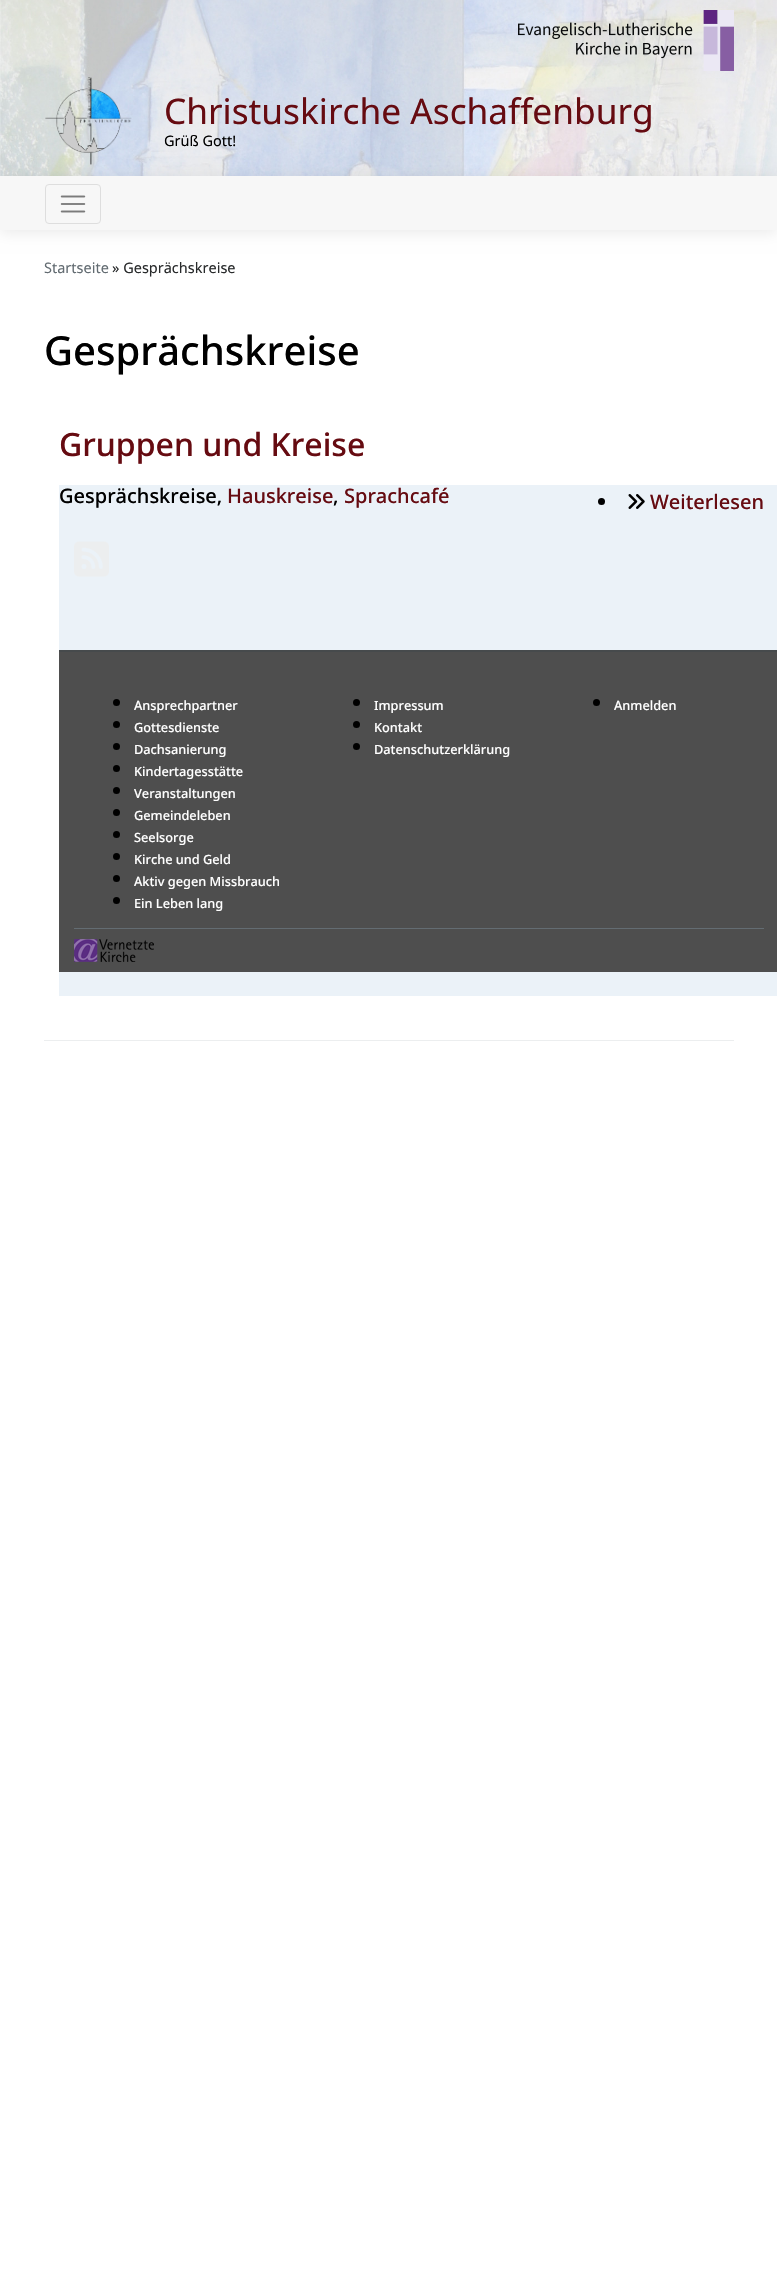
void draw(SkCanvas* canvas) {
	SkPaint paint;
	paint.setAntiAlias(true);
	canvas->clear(0xffffffff);
	canvas->drawImageRect(SkImages::DeferredFromEncodedData(SkData::MakeFromFileName("img1.png")), SkRect::MakeXYWH(0, 0, 777, 176), SkSamplingOptions());
	canvas->drawImageRect(SkImages::DeferredFromEncodedData(SkData::MakeFromFileName("img2.png")), SkRect::MakeXYWH(518, 10, 216, 61), SkSamplingOptions());
	canvas->drawImageRect(SkImages::DeferredFromEncodedData(SkData::MakeFromFileName("img3.png")), SkRect::MakeXYWH(45, 77, 87, 88), SkSamplingOptions());
	SkFont f1(fontMgr->matchFamilyStyle("Noto Sans", SkFontStyle::Normal()), 35.25);
	f1.setSubpixel(true);
	paint.setColor(0xff660b11);
	canvas->drawString("Christuskirche Aschaffenburg", 164, 124, f1, paint);
	SkFont f2(fontMgr->matchFamilyStyle("Noto Sans", SkFontStyle::Normal()), 14.5);
	f2.setSubpixel(true);
	paint.setColor(0xff000000);
	canvas->drawString("Grüß Gott!", 164, 146, f2, paint);
	paint.setColor(0x17000000);
	paint.setMaskFilter(SkMaskFilter::MakeBlur(kNormal_SkBlurStyle, 7.5));
	canvas->drawRect(SkRect::MakeXYWH(0, 178, 777, 54), paint);
	paint.setMaskFilter(nullptr);
	paint.setColor(0xfff7f7f7);
	canvas->drawRect(SkRect::MakeXYWH(0, 176, 777, 54), paint);
	paint.setStroke(true);
	paint.setStrokeWidth(1);
	paint.setColor(0xffdedede);
	canvas->drawRoundRect(SkRect::MakeXYWH(45.5, 184.5, 55, 39), 3.5, 3.5, paint);
	canvas->drawImageRect(SkImages::DeferredFromEncodedData(SkData::MakeFromFileName("img4.png")), SkRect::MakeXYWH(60, 195, 26, 18), SkSamplingOptions());
	paint.setStroke(false);
	paint.setColor(0xff636c72);
	canvas->drawString("Startseite", 44, 273, f2, paint);
	paint.setColor(0xff292b2c);
	canvas->drawString("» Gesprächskreise", 112, 273, f2, paint);
	SkFont f3(fontMgr->matchFamilyStyle("Noto Sans", SkFontStyle(500, SkFontStyle::kNormal_Width, SkFontStyle::kUpright_Slant)), 40);
	f3.setSubpixel(true);
	paint.setColor(0xff000000);
	canvas->drawString("Gesprächskreise", 44, 365, f3, paint);
	paint.setColor(0xffeceeef);
	canvas->drawRect(SkRect::MakeXYWH(44, 1040, 690, 1), paint);
	SkFont f4(fontMgr->matchFamilyStyle("Noto Sans", SkFontStyle(500, SkFontStyle::kNormal_Width, SkFontStyle::kUpright_Slant)), 32);
	f4.setSubpixel(true);
	paint.setColor(0xff660b11);
	canvas->drawString("Gruppen und Kreise", 59, 456, f4, paint);
	paint.setColor(0xffebf2f8);
	canvas->drawRect(SkRect::MakeXYWH(59, 485, 718, 511), paint);
	SkFont f5(fontMgr->matchFamilyStyle("Noto Sans", SkFontStyle(500, SkFontStyle::kNormal_Width, SkFontStyle::kUpright_Slant)), 20);
	f5.setSubpixel(true);
	paint.setColor(0xff000000);
	canvas->drawString("Gesprächskreise,", 59, 503, f5, paint);
	paint.setColor(0xff660b11);
	canvas->drawString("Hauskreise", 227, 503, f5, paint);
	paint.setColor(0xff000000);
	canvas->drawString(",", 333, 503, f5, paint);
	paint.setColor(0xff660b11);
	canvas->drawString("Sprachcafé", 344, 503, f5, paint);
	paint.setColor(0xff000000);
	canvas->drawCircle(601.5, 501.5, 3.5, paint);
	canvas->drawImageRect(SkImages::DeferredFromEncodedData(SkData::MakeFromFileName("img5.png")), SkRect::MakeXYWH(628, 494, 17, 15), SkSamplingOptions());
	paint.setColor(0xff660b11);
	canvas->drawString("Weiterlesen", 650, 509, f5, paint);
	canvas->drawImageRect(SkImages::DeferredFromEncodedData(SkData::MakeFromFileName("img6.png")), SkRect::MakeXYWH(74, 541, 35, 36), SkSamplingOptions());
	paint.setColor(0xff4e4e4e);
	canvas->drawRect(SkRect::MakeXYWH(59, 652, 718, 320), paint);
	paint.setColor(0xff464a4c);
	canvas->drawRect(SkRect::MakeXYWH(59, 650, 718, 2), paint);
	paint.setColor(0xff000000);
	canvas->drawCircle(116.5, 702.5, 3.5, paint);
	SkFont f6(fontMgr->matchFamilyStyle("Noto Sans", SkFontStyle(500, SkFontStyle::kNormal_Width, SkFontStyle::kUpright_Slant)), 12.75);
	f6.setSubpixel(true);
	paint.setColor(0xffffffff);
	canvas->drawString("Ansprechpartner", 134, 710, f6, paint);
	paint.setColor(0xff000000);
	canvas->drawCircle(116.5, 724.5, 3.5, paint);
	paint.setColor(0xffffffff);
	canvas->drawString("Gottesdienste", 134, 732, f6, paint);
	paint.setColor(0xff000000);
	canvas->drawCircle(116.5, 746.5, 3.5, paint);
	paint.setColor(0xffffffff);
	canvas->drawString("Dachsanierung", 134, 754, f6, paint);
	paint.setColor(0xff000000);
	canvas->drawCircle(116.5, 768.5, 3.5, paint);
	paint.setColor(0xffffffff);
	canvas->drawString("Kindertagesstätte", 134, 776, f6, paint);
	paint.setColor(0xff000000);
	canvas->drawCircle(116.5, 790.5, 3.5, paint);
	paint.setColor(0xffffffff);
	canvas->drawString("Veranstaltungen", 134, 798, f6, paint);
	paint.setColor(0xff000000);
	canvas->drawCircle(116.5, 812.5, 3.5, paint);
	paint.setColor(0xffffffff);
	canvas->drawString("Gemeindeleben", 134, 820, f6, paint);
	paint.setColor(0xff000000);
	canvas->drawCircle(116.5, 834.5, 3.5, paint);
	paint.setColor(0xffffffff);
	canvas->drawString("Seelsorge", 134, 842, f6, paint);
	paint.setColor(0xff000000);
	canvas->drawCircle(116.5, 856.5, 3.5, paint);
	paint.setColor(0xffffffff);
	canvas->drawString("Kirche und Geld", 134, 864, f6, paint);
	paint.setColor(0xff000000);
	canvas->drawCircle(116.5, 878.5, 3.5, paint);
	paint.setColor(0xffffffff);
	canvas->drawString("Aktiv gegen Missbrauch", 134, 886, f6, paint);
	paint.setColor(0xff000000);
	canvas->drawCircle(116.5, 900.5, 3.5, paint);
	paint.setColor(0xffffffff);
	canvas->drawString("Ein Leben lang", 134, 908, f6, paint);
	paint.setColor(0xff000000);
	canvas->drawCircle(356.5, 702.5, 3.5, paint);
	paint.setColor(0xffffffff);
	canvas->drawString("Impressum", 374, 710, f6, paint);
	paint.setColor(0xff000000);
	canvas->drawCircle(356.5, 724.5, 3.5, paint);
	paint.setColor(0xffffffff);
	canvas->drawString("Kontakt", 374, 732, f6, paint);
	paint.setColor(0xff000000);
	canvas->drawCircle(356.5, 746.5, 3.5, paint);
	paint.setColor(0xffffffff);
	canvas->drawString("Datenschutzerklärung", 374, 754, f6, paint);
	paint.setColor(0xff000000);
	canvas->drawCircle(596.5, 702.5, 3.5, paint);
	paint.setColor(0xffffffff);
	canvas->drawString("Anmelden", 614, 710, f6, paint);
	paint.setColor(0xff636c72);
	canvas->drawRect(SkRect::MakeXYWH(74, 928, 690, 1), paint);
	canvas->drawImageRect(SkImages::DeferredFromEncodedData(SkData::MakeFromFileName("img7.png")), SkRect::MakeXYWH(74, 939, 80, 23), SkSamplingOptions());
}
